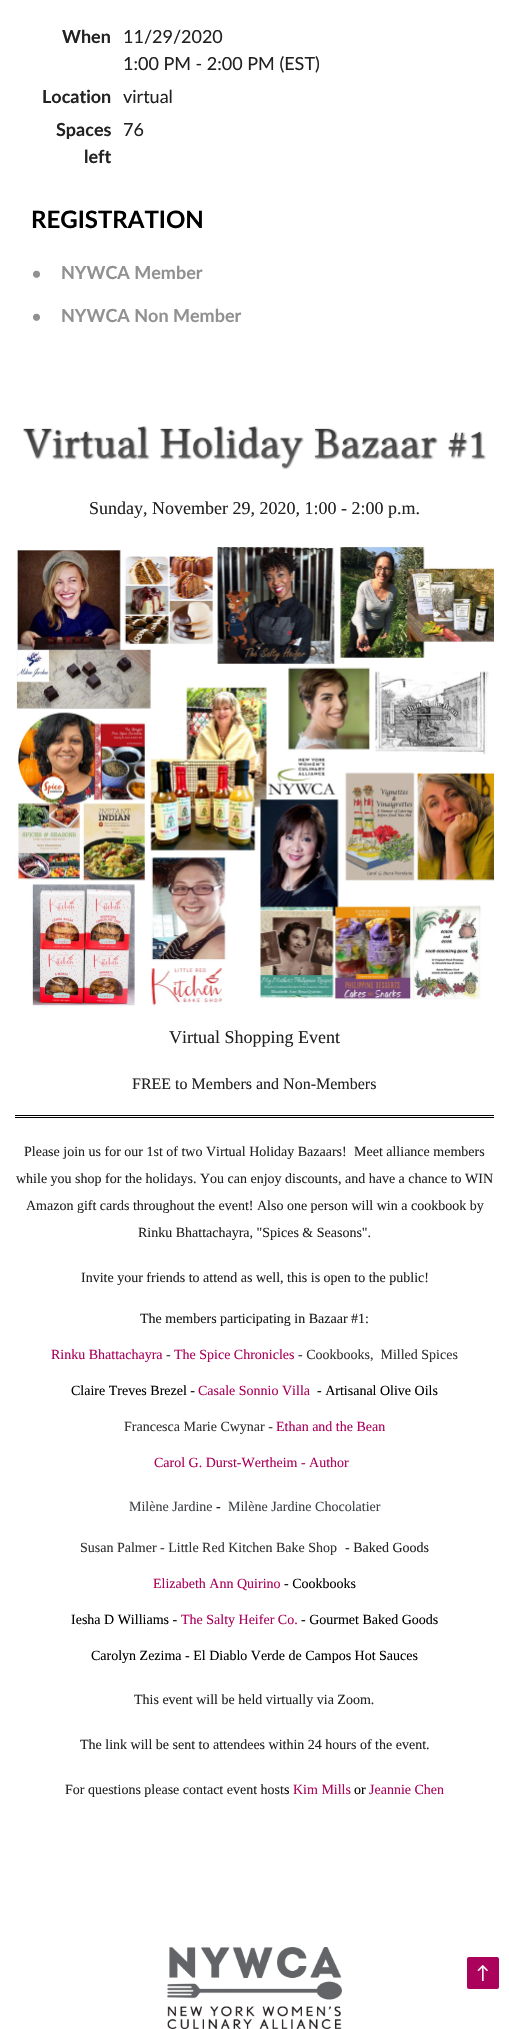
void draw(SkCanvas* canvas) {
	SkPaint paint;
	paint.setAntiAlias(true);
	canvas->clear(0xffffffff);
	SkFont f1(fontMgr->matchFamilyStyle("Lato", SkFontStyle::Bold()), 18);
	f1.setSubpixel(true);
	paint.setColor(0xff222222);
	canvas->drawString("When", 62, 43, f1, paint);
	SkFont f2(fontMgr->matchFamilyStyle("Lato", SkFontStyle::Normal()), 18);
	f2.setSubpixel(true);
	canvas->drawString("11/29/2020", 123, 43, f2, paint);
	canvas->drawString("1:00 PM - 2:00 PM (EST)", 123, 70, f2, paint);
	canvas->drawString("Location", 42, 103, f1, paint);
	canvas->drawString("virtual", 123, 103, f2, paint);
	canvas->drawString("Spaces", 56, 136, f1, paint);
	canvas->drawString("left", 84, 163, f1, paint);
	canvas->drawString("76", 123, 136, f2, paint);
	SkFont f3(fontMgr->matchFamilyStyle("Lato", SkFontStyle::Bold()), 24);
	f3.setSubpixel(true);
	paint.setColor(0xff000000);
	canvas->drawString("REGISTRATION", 31, 228, f3, paint);
	SkFont f4(fontMgr->matchFamilyStyle("Lato", SkFontStyle::Normal()), 19);
	f4.setSubpixel(true);
	paint.setColor(0xff929191);
	canvas->drawString("•", 31, 280, f4, paint);
	canvas->drawString("NYWCA Member", 61, 279, f1, paint);
	canvas->drawString("•", 31, 323, f4, paint);
	canvas->drawString("NYWCA Non Member", 61, 322, f1, paint);
	canvas->drawImageRect(SkImages::DeferredFromEncodedData(SkData::MakeFromFileName("img1.png")), SkRect::MakeXYWH(23, 426, 463, 44), SkSamplingOptions());
	SkFont f5(fontMgr->matchFamilyStyle("Liberation Serif", SkFontStyle::Normal()), 18);
	f5.setSubpixel(true);
	paint.setColor(0xff222222);
	canvas->drawString("Sunday, November 29, 2020, 1:00 - 2:00 p.m.", 89, 514, f5, paint);
	canvas->drawImageRect(SkImages::DeferredFromEncodedData(SkData::MakeFromFileName("img2.png")), SkRect::MakeXYWH(15, 545, 479, 462), SkSamplingOptions());
	canvas->drawString("Virtual Shopping Event", 169, 1043, f5, paint);
	SkFont f6(fontMgr->matchFamilyStyle("Liberation Serif", SkFontStyle::Normal()), 16);
	f6.setSubpixel(true);
	canvas->drawString("FREE to Members and Non-Members", 132, 1089, f6, paint);
	paint.setColor(0xff000000);
	canvas->drawRect(SkRect::MakeXYWH(15, 1115, 479, 1), paint);
	canvas->drawRect(SkRect::MakeXYWH(15, 1117, 479, 1), paint);
	SkFont f7(fontMgr->matchFamilyStyle("Liberation Serif", SkFontStyle::Normal()), 14);
	f7.setSubpixel(true);
	paint.setColor(0xff222222);
	canvas->drawString("Please join us for our 1st of two Virtual Holiday Bazaars!", 24, 1156, f7, paint);
	canvas->drawString("Meet alliance members", 354, 1156, f7, paint);
	canvas->drawString("while you shop for the holidays. You can enjoy discounts, and have a chance to WIN", 16, 1183, f7, paint);
	canvas->drawString("Amazon gift cards throughout the event! Also one person will win a cookbook by", 26, 1210, f7, paint);
	canvas->drawString("Rinku Bhattachayra, \"Spices & Seasons\".", 138, 1237, f7, paint);
	canvas->drawString("Invite your friends to attend as well, this is open to the public!", 81, 1282, f7, paint);
	paint.setColor(0xff1a1a1a);
	canvas->drawString("The members participating in Bazaar #1:", 140, 1323, f7, paint);
	paint.setColor(0xffab035c);
	canvas->drawString("Rinku Bhattachayra", 51, 1359, f7, paint);
	paint.setColor(0xff333333);
	canvas->drawString("-", 166, 1359, f7, paint);
	paint.setColor(0xffab035c);
	canvas->drawString("The Spice Chronicles", 174, 1359, f7, paint);
	paint.setColor(0xff333333);
	canvas->drawString("- Cookbooks,  Milled Spices", 298, 1359, f7, paint);
	paint.setColor(0xff000000);
	canvas->drawString("Claire Treves Brezel -", 71, 1395, f7, paint);
	paint.setColor(0xffab035c);
	canvas->drawString("Casale Sonnio Villa", 198, 1395, f7, paint);
	paint.setColor(0xff000000);
	canvas->drawString("- Artisanal Olive Oils", 317, 1395, f7, paint);
	paint.setColor(0xff333333);
	canvas->drawString("Francesca Marie Cwynar -", 124, 1431, f7, paint);
	paint.setColor(0xffab035c);
	canvas->drawString("Ethan and the Bean", 276, 1431, f7, paint);
	canvas->drawString("Carol G. Durst-Wertheim - Author", 154, 1467, f7, paint);
	paint.setColor(0xff3d4246);
	canvas->drawString("Milène Jardine", 129, 1511, f7, paint);
	paint.setColor(0xff000000);
	canvas->drawString("-", 216, 1511, f7, paint);
	paint.setColor(0xff3d4246);
	canvas->drawString("Milène Jardine Chocolatier", 228, 1511, f7, paint);
	paint.setColor(0xff333333);
	canvas->drawString("Susan Palmer - Little Red Kitchen Bake Shop", 80, 1552, f7, paint);
	paint.setColor(0xff222222);
	canvas->drawString("- Baked Goods", 345, 1552, f7, paint);
	paint.setColor(0xffab035c);
	canvas->drawString("Elizabeth Ann Quirino", 153, 1588, f7, paint);
	paint.setColor(0xff000000);
	canvas->drawString("- Cookbooks", 284, 1588, f7, paint);
	canvas->drawString("Iesha D Williams -", 71, 1624, f7, paint);
	paint.setColor(0xffab035c);
	canvas->drawString("The Salty Heifer Co.", 181, 1624, f7, paint);
	paint.setColor(0xff000000);
	canvas->drawString("- Gourmet Baked Goods", 301, 1624, f7, paint);
	canvas->drawString("Carolyn Zezima - El Diablo Verde de Campos Hot Sauces", 91, 1660, f7, paint);
	paint.setColor(0xff222222);
	canvas->drawString("This event will be held virtually via Zoom.", 134, 1704, f7, paint);
	canvas->drawString("The link will be sent to attendees within 24 hours of the event.", 80, 1749, f7, paint);
	canvas->drawString("For questions please contact event host", 65, 1794, f7, paint);
	paint.setColor(0xff000000);
	canvas->drawString("s", 284, 1794, f7, paint);
	paint.setColor(0xffab035c);
	canvas->drawString("Kim Mills", 293, 1794, f7, paint);
	paint.setColor(0xff000000);
	canvas->drawString("or", 354, 1794, f7, paint);
	paint.setColor(0xffab035c);
	canvas->drawString("Jeannie Chen", 369, 1794, f7, paint);
	canvas->drawImageRect(SkImages::DeferredFromEncodedData(SkData::MakeFromFileName("img3.png")), SkRect::MakeXYWH(167, 1947, 175, 82), SkSamplingOptions());
	canvas->drawRoundRect(SkRect::MakeXYWH(467, 1957, 32, 32), 2, 2, paint);
	paint.setColor(0xffffffff);
	canvas->drawString("↑", 476, 1979, f2, paint);
}
